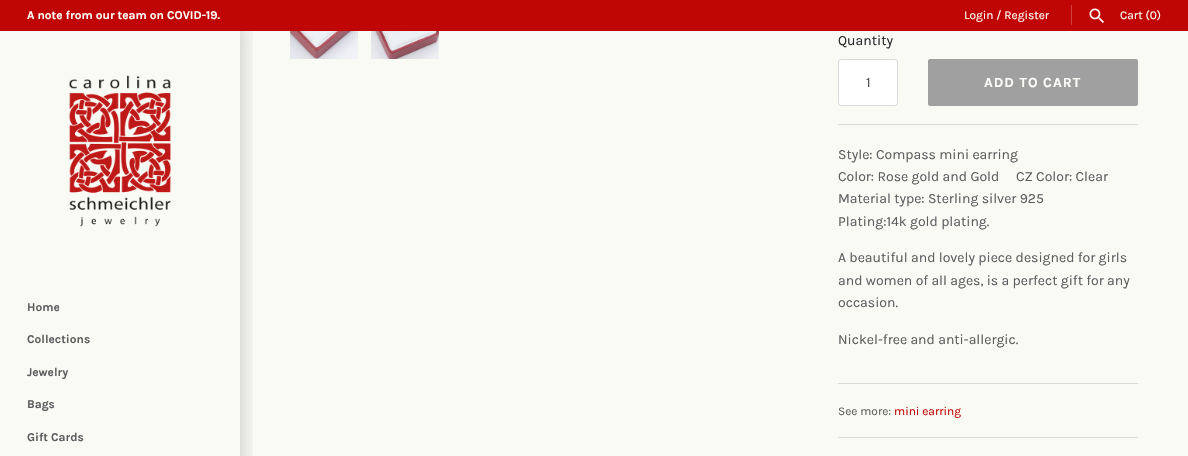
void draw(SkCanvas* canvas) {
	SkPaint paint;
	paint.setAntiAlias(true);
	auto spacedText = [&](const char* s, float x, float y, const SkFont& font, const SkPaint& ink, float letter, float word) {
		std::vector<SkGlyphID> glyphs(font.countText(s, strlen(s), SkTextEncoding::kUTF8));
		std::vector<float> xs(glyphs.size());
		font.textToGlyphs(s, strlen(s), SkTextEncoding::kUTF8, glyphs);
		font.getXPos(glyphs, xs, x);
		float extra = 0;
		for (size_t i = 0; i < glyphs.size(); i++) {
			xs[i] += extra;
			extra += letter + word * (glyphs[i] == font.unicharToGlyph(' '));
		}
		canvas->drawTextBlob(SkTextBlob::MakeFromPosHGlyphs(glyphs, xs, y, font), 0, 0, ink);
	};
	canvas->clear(0xfffafaf5);
	canvas->save();
	canvas->clipRect(SkRect::MakeXYWH(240, 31, 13, 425));
	paint.setColor(0x26000000);
	paint.setMaskFilter(SkMaskFilter::MakeBlur(kNormal_SkBlurStyle, 7.5));
	canvas->drawRect(SkRect::MakeXYWH(-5, 26, 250, 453), paint);
	paint.setMaskFilter(nullptr);
	canvas->restore();
	paint.setColor(0xffc00505);
	canvas->drawRect(SkRect::MakeXYWH(0, 0, 1188, 31), paint);
	SkFont f1(fontMgr->matchFamilyStyle("Karla", SkFontStyle::Bold()), 11.9);
	f1.setSubpixel(true);
	paint.setColor(0xfffdfdf9);
	canvas->drawString("A note from our team on COVID-19.", 27, 19, f1, paint);
	SkFont f2(fontMgr->matchFamilyStyle("Karla", SkFontStyle::Normal()), 11.9);
	f2.setSubpixel(true);
	canvas->drawString("Login / Register", 964, 19, f2, paint);
	paint.setColor(0xffcf4241);
	canvas->drawRect(SkRect::MakeXYWH(1071, 5, 1, 20), paint);
	canvas->drawImageRect(SkImages::DeferredFromEncodedData(SkData::MakeFromFileName("img1.png")), SkRect::MakeXYWH(1089, 8, 15, 15), SkSamplingOptions());
	paint.setColor(0xfffdfdf9);
	canvas->drawString("Cart (0)", 1120, 19, f2, paint);
	canvas->drawImageRect(SkImages::DeferredFromEncodedData(SkData::MakeFromFileName("img2.png")), SkRect::MakeXYWH(69, 75, 102, 152), SkSamplingOptions());
	paint.setColor(0xff5d5d60);
	canvas->drawString("Home", 27, 311, f1, paint);
	canvas->drawString("Collections", 27, 343, f1, paint);
	canvas->drawString("Jewelry", 27, 376, f1, paint);
	canvas->drawString("Bags", 27, 408, f1, paint);
	canvas->drawString("Gift Cards", 27, 441, f1, paint);
	canvas->drawImageRect(SkImages::DeferredFromEncodedData(SkData::MakeFromFileName("img3.png")), SkRect::MakeXYWH(290, 31, 68, 28), SkSamplingOptions());
	canvas->drawImageRect(SkImages::DeferredFromEncodedData(SkData::MakeFromFileName("img4.png")), SkRect::MakeXYWH(371, 31, 68, 28), SkSamplingOptions());
	SkFont f3(fontMgr->matchFamilyStyle("Karla", SkFontStyle::Normal()), 14);
	f3.setSubpixel(true);
	paint.setColor(0xff252729);
	canvas->drawString("Quantity", 838, 45, f3, paint);
	paint.setColor(0xffffffff);
	canvas->drawRoundRect(SkRect::MakeXYWH(838, 59, 60, 47), 3, 3, paint);
	paint.setStroke(true);
	paint.setStrokeWidth(1);
	paint.setColor(0x26000000);
	canvas->drawRoundRect(SkRect::MakeXYWH(838.5, 59.5, 59, 46), 2.5, 2.5, paint);
	paint.setStroke(false);
	paint.setColor(0xff444444);
	canvas->drawString("1", 866, 87, f3, paint);
	paint.setColor(0xffa0a0a0);
	canvas->drawRoundRect(SkRect::MakeXYWH(928.5, 59.5, 209, 46), 1.5, 1.5, paint);
	paint.setStroke(true);
	canvas->drawRoundRect(SkRect::MakeXYWH(928.5, 59.5, 209, 46), 1.5, 1.5, paint);
	SkFont f4(fontMgr->matchFamilyStyle("Karla", SkFontStyle::Bold()), 14);
	f4.setSubpixel(true);
	paint.setStroke(false);
	paint.setColor(0xfffdfdf9);
	spacedText("ADD TO CART", 984, 87, f4, paint, 1, 0);
	paint.setColor(0xffdbdad7);
	canvas->drawRect(SkRect::MakeXYWH(838, 124, 300, 1), paint);
	paint.setColor(0xff5d5d60);
	canvas->drawString("Style: Compass mini earring", 838, 159, f3, paint);
	canvas->drawString("Color: Rose gold and Gold     CZ Color: Clear", 838, 181, f3, paint);
	canvas->drawString("Material type: Sterling silver 925", 838, 203, f3, paint);
	canvas->drawString("Plating:14k gold plating.", 838, 226, f3, paint);
	canvas->drawString("A beautiful and lovely piece designed for girls", 838, 262, f3, paint);
	canvas->drawString("and women of all ages, is a perfect gift for any", 838, 285, f3, paint);
	canvas->drawString("occasion.", 838, 307, f3, paint);
	canvas->drawString("Nickel-free and anti-allergic.", 838, 344, f3, paint);
	paint.setColor(0xffdbdad7);
	canvas->drawRect(SkRect::MakeXYWH(838, 383, 300, 1), paint);
	paint.setColor(0xff5d5d60);
	canvas->drawString("See more:", 838, 415, f2, paint);
	paint.setColor(0xffc00505);
	canvas->drawString("mini earring", 894, 415, f2, paint);
	paint.setColor(0xffdbdad7);
	canvas->drawRect(SkRect::MakeXYWH(838, 437, 300, 1), paint);
}
